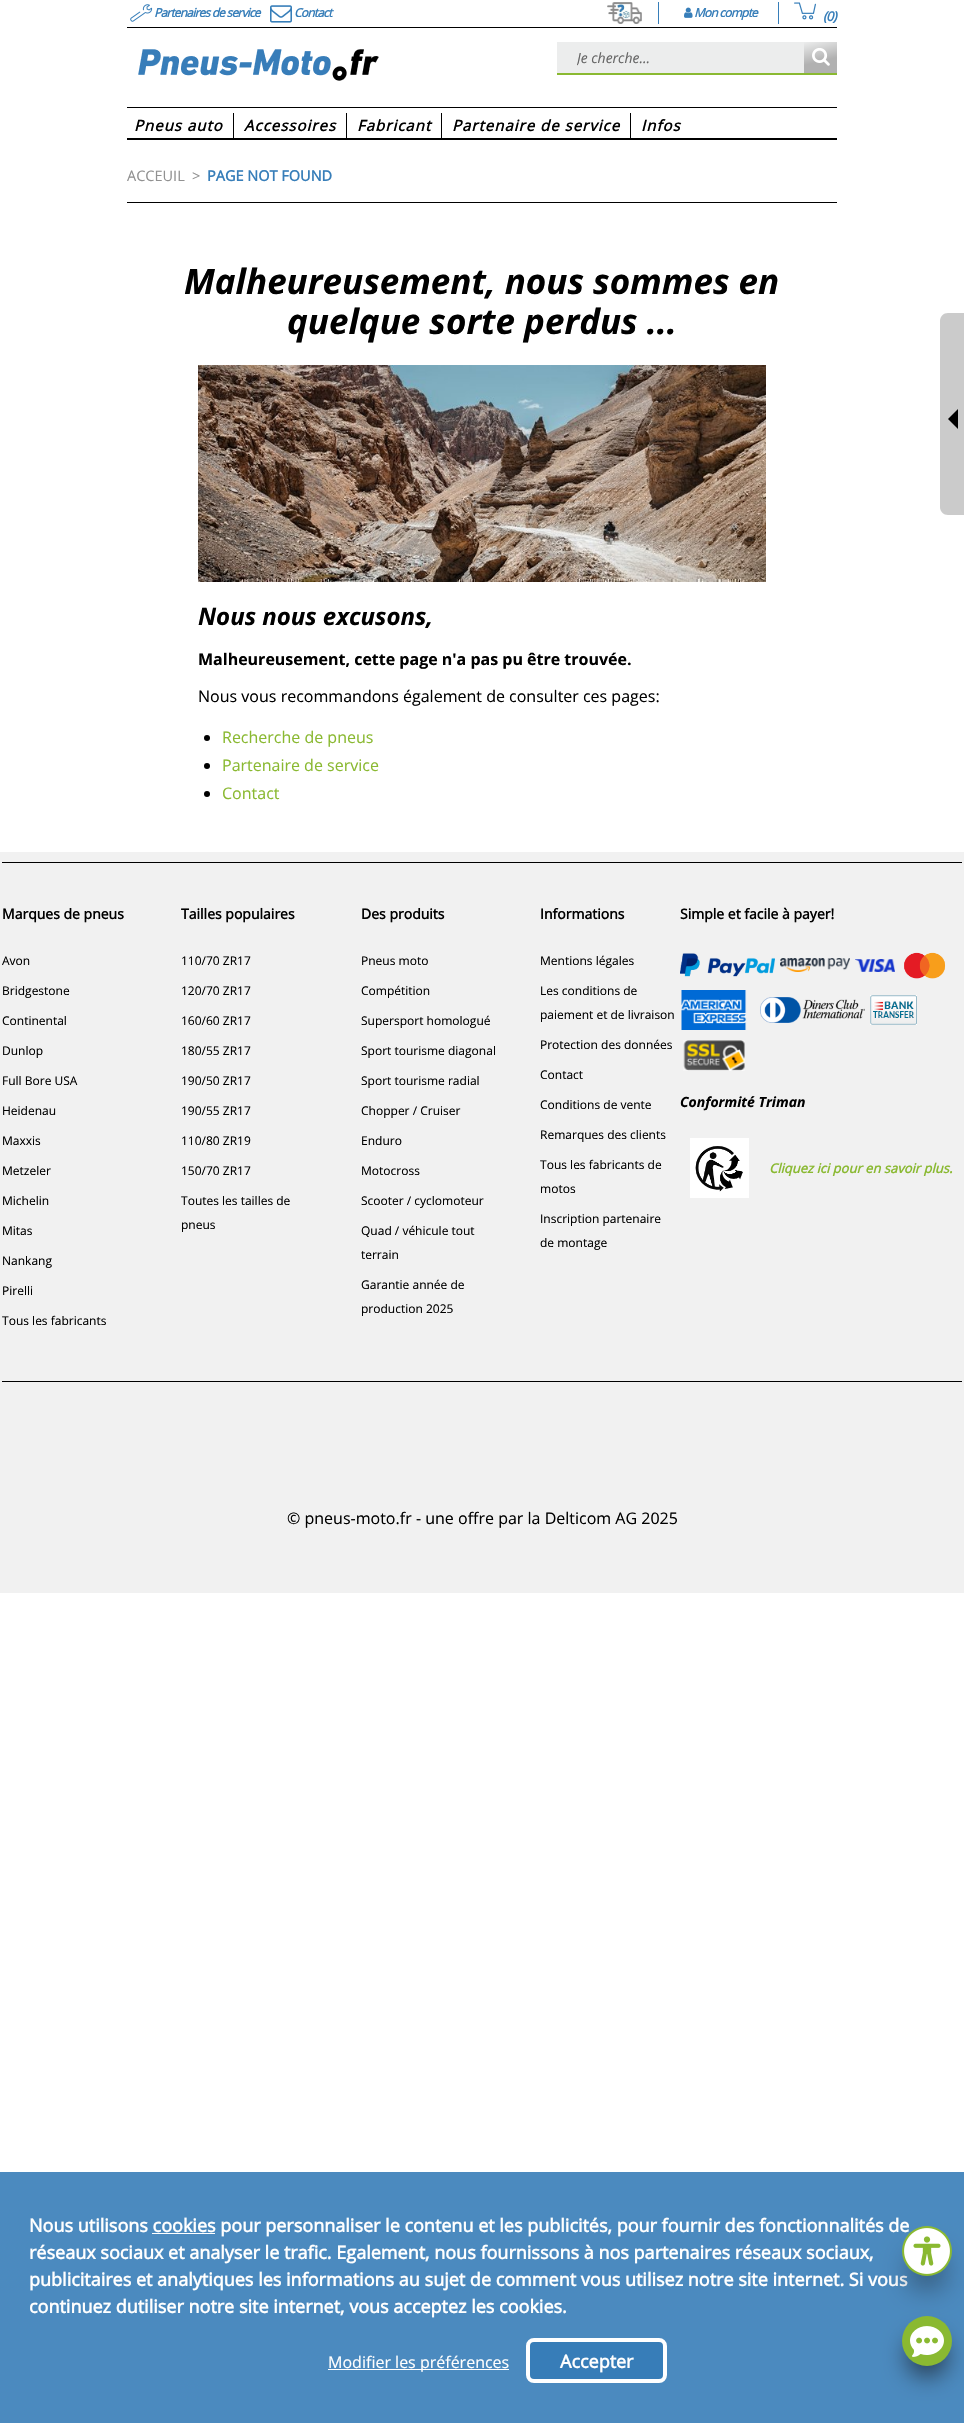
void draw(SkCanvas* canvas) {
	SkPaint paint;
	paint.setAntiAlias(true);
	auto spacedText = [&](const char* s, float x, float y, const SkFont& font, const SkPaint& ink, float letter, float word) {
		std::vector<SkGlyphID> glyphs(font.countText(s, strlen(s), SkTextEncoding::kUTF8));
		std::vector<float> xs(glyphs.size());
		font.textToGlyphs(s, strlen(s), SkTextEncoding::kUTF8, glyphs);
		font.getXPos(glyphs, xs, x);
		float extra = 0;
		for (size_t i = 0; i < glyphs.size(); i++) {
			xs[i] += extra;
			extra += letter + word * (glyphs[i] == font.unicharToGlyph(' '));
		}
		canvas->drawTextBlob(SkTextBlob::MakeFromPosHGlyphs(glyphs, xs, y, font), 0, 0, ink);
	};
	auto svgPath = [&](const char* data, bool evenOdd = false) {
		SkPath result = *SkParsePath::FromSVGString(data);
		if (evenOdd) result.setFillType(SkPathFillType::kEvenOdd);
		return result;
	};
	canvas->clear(0xffffffff);
	paint.setColor(0xff000000);
	canvas->drawRect(SkRect::MakeXYWH(127, 27, 710, 1), paint);
	canvas->drawImageRect(SkImages::DeferredFromEncodedData(SkData::MakeFromFileName("img1.png")), SkRect::MakeXYWH(130, 4, 23, 18), SkSamplingOptions());
	SkFont f1(fontMgr->matchFamilyStyle("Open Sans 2", SkFontStyle::BoldItalic()), 12);
	f1.setSubpixel(true);
	paint.setColor(0xff377eb9);
	spacedText("Partenaires de service", 154, 17, f1, paint, -0.8, 0);
	canvas->drawImageRect(SkImages::DeferredFromEncodedData(SkData::MakeFromFileName("img2.png")), SkRect::MakeXYWH(270, 5, 22, 18), SkSamplingOptions());
	spacedText("Contact", 294, 17, f1, paint, -0.8, 0);
	canvas->drawRect(SkRect::MakeXYWH(658, 2, 1, 22), paint);
	canvas->drawImageRect(SkImages::DeferredFromEncodedData(SkData::MakeFromFileName("img3.png")), SkRect::MakeXYWH(607, 2, 35, 22), SkSamplingOptions());
	canvas->drawRect(SkRect::MakeXYWH(778, 2, 1, 22), paint);
	canvas->drawImageRect(SkImages::DeferredFromEncodedData(SkData::MakeFromFileName("img4.png")), SkRect::MakeXYWH(684, 7, 9, 11), SkSamplingOptions());
	spacedText("Mon compte", 694, 17, f1, paint, -0.8, 0);
	canvas->drawImageRect(SkImages::DeferredFromEncodedData(SkData::MakeFromFileName("img5.png")), SkRect::MakeXYWH(794, 2, 22, 18), SkSamplingOptions());
	SkFont f2(fontMgr->matchFamilyStyle("Open Sans 2", SkFontStyle::BoldItalic()), 13);
	f2.setSubpixel(true);
	spacedText("(0)", 823, 21, f2, paint, -0.8, 0);
	canvas->drawImageRect(SkImages::DeferredFromEncodedData(SkData::MakeFromFileName("img6.png")), SkRect::MakeXYWH(138, 49, 241, 32), SkSamplingOptions());
	paint.setColor(0xffeceded);
	canvas->drawRect(SkRect::MakeXYWH(557, 42, 247, 31), paint);
	paint.setColor(0xff8ab931);
	canvas->drawRect(SkRect::MakeXYWH(557, 73, 280, 2), paint);
	canvas->save();
	canvas->clipRect(SkRect::MakeXYWH(577, 48, 200, 19));
	SkFont f3(fontMgr->matchFamilyStyle("Open Sans", SkFontStyle::Italic()), 14);
	f3.setSubpixel(true);
	paint.setColor(0xff666666);
	canvas->drawString("Je cherche...", 577, 63, f3, paint);
	canvas->restore();
	{
		const SkColor colors[] = {0xffeceded, 0xffb1b1b1};
		const float stops[] = {0, 0.6};
		const SkPoint ends[] = {{816, 39}, {825, 76}};
		paint.setShader(SkGradientShader::MakeLinear(ends, colors, stops, 2, SkTileMode::kClamp));
		paint.setAlpha(255);
	}
	canvas->drawRect(SkRect::MakeXYWH(804, 42, 33, 31), paint);
	canvas->drawImageRect(SkImages::DeferredFromEncodedData(SkData::MakeFromFileName("img7.png")), SkRect::MakeXYWH(812, 48, 18, 18), SkSamplingOptions());
	paint.setShader(nullptr);
	paint.setColor(0xff000000);
	canvas->drawRect(SkRect::MakeXYWH(127, 107, 710, 1), paint);
	canvas->drawRect(SkRect::MakeXYWH(127, 138, 710, 2), paint);
	canvas->drawRect(SkRect::MakeXYWH(233, 113, 1, 25), paint);
	SkFont f4(fontMgr->matchFamilyStyle("Open Sans 2", SkFontStyle::BoldItalic()), 15);
	f4.setSubpixel(true);
	spacedText("Pneus auto", 134, 131, f4, paint, 1, 0);
	canvas->drawRect(SkRect::MakeXYWH(346, 113, 1, 25), paint);
	spacedText("Accessoires", 244, 131, f4, paint, 1, 0);
	canvas->drawRect(SkRect::MakeXYWH(441, 113, 1, 25), paint);
	spacedText("Fabricant", 357, 131, f4, paint, 1, 0);
	canvas->drawRect(SkRect::MakeXYWH(630, 113, 1, 25), paint);
	spacedText("Partenaire de service", 452, 131, f4, paint, 1, 0);
	spacedText("Infos", 641, 131, f4, paint, 1, 0);
	canvas->drawRect(SkRect::MakeXYWH(127, 202, 710, 1), paint);
	SkFont f5(fontMgr->matchFamilyStyle("Open Sans", SkFontStyle::Normal()), 14.5);
	f5.setSubpixel(true);
	paint.setColor(0xff919191);
	canvas->drawString("ACCEUIL", 127, 181, f5, paint);
	canvas->drawString(">", 192, 181, f5, paint);
	SkFont f6(fontMgr->matchFamilyStyle("Open Sans 2", SkFontStyle::Bold()), 14.5);
	f6.setSubpixel(true);
	paint.setColor(0xff377eb9);
	canvas->drawString("PAGE NOT FOUND", 207, 181, f6, paint);
	paint.setColor(0xffcbcbcb);
	canvas->drawPath(svgPath("M948 313H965V515H948C943.5 515 940 511.5 940 507V321C940 316.5 943.5 313 948 313Z"), paint);
	paint.setColor(0xff000000);
	canvas->drawPath(svgPath("M958 409V429L948 419Z"), paint);
	SkFont f7(fontMgr->matchFamilyStyle("Open Sans", SkFontStyle::BoldItalic()), 35);
	f7.setSubpixel(true);
	canvas->drawString("Malheureusement, nous sommes en", 184, 294, f7, paint);
	canvas->drawString("quelque sorte perdus ...", 287, 334, f7, paint);
	canvas->drawImageRect(SkImages::DeferredFromEncodedData(SkData::MakeFromFileName("img8.png")), SkRect::MakeXYWH(198, 365, 568, 217), SkSamplingOptions());
	SkFont f8(fontMgr->matchFamilyStyle("Open Sans", SkFontStyle::BoldItalic()), 24);
	f8.setSubpixel(true);
	canvas->drawString("Nous nous excusons,", 198, 625, f8, paint);
	SkFont f9(fontMgr->matchFamilyStyle("Open Sans", SkFontStyle::Bold()), 16);
	f9.setSubpixel(true);
	canvas->drawString("Malheureusement, cette page n'a pas pu être trouvée.", 198, 665, f9, paint);
	SkFont f10(fontMgr->matchFamilyStyle("Open Sans", SkFontStyle::Normal()), 16);
	f10.setSubpixel(true);
	canvas->drawString("Nous vous recommandons également de consulter ces pages:", 198, 702, f10, paint);
	canvas->drawCircle(207, 738, 3, paint);
	paint.setColor(0xff8ab931);
	canvas->drawString("Recherche de pneus", 222, 743, f10, paint);
	paint.setColor(0xff000000);
	canvas->drawCircle(207, 766, 3, paint);
	paint.setColor(0xff8ab931);
	canvas->drawString("Partenaire de service", 222, 771, f10, paint);
	paint.setColor(0xff000000);
	canvas->drawCircle(207, 794, 3, paint);
	paint.setColor(0xff8ab931);
	canvas->drawString("Contact", 222, 799, f10, paint);
	paint.setColor(0xfff1f1f1);
	canvas->drawRect(SkRect::MakeXYWH(0, 852, 964, 741), paint);
	paint.setColor(0xff000000);
	canvas->drawRect(SkRect::MakeXYWH(2, 862, 960, 1), paint);
	canvas->drawRect(SkRect::MakeXYWH(2, 1381, 960, 1), paint);
	SkFont f11(fontMgr->matchFamilyStyle("Open Sans 2", SkFontStyle::Bold()), 14);
	f11.setSubpixel(true);
	canvas->drawString("Marques de pneus", 2, 919, f11, paint);
	SkFont f12(fontMgr->matchFamilyStyle("Open Sans", SkFontStyle::Normal()), 12);
	f12.setSubpixel(true);
	canvas->drawString("Avon", 2, 965, f12, paint);
	canvas->drawString("Bridgestone", 2, 995, f12, paint);
	canvas->drawString("Continental", 2, 1025, f12, paint);
	canvas->drawString("Dunlop", 2, 1055, f12, paint);
	canvas->drawString("Full Bore USA", 2, 1085, f12, paint);
	canvas->drawString("Heidenau", 2, 1115, f12, paint);
	canvas->drawString("Maxxis", 2, 1145, f12, paint);
	canvas->drawString("Metzeler", 2, 1175, f12, paint);
	canvas->drawString("Michelin", 2, 1205, f12, paint);
	canvas->drawString("Mitas", 2, 1235, f12, paint);
	canvas->drawString("Nankang", 2, 1265, f12, paint);
	canvas->drawString("Pirelli", 2, 1295, f12, paint);
	canvas->drawString("Tous les fabricants", 2, 1325, f12, paint);
	canvas->drawString("Tailles populaires", 181, 919, f11, paint);
	canvas->drawString("110/70 ZR17", 181, 965, f12, paint);
	canvas->drawString("120/70 ZR17", 181, 995, f12, paint);
	canvas->drawString("160/60 ZR17", 181, 1025, f12, paint);
	canvas->drawString("180/55 ZR17", 181, 1055, f12, paint);
	canvas->drawString("190/50 ZR17", 181, 1085, f12, paint);
	canvas->drawString("190/55 ZR17", 181, 1115, f12, paint);
	canvas->drawString("110/80 ZR19", 181, 1145, f12, paint);
	canvas->drawString("150/70 ZR17", 181, 1175, f12, paint);
	canvas->drawString("Toutes les tailles de", 181, 1205, f12, paint);
	canvas->drawString("pneus", 181, 1229, f12, paint);
	canvas->drawString("Des produits", 361, 919, f11, paint);
	canvas->drawString("Pneus moto", 361, 965, f12, paint);
	canvas->drawString("Compétition", 361, 995, f12, paint);
	canvas->drawString("Supersport homologué", 361, 1025, f12, paint);
	canvas->drawString("Sport tourisme diagonal", 361, 1055, f12, paint);
	canvas->drawString("Sport tourisme radial", 361, 1085, f12, paint);
	canvas->drawString("Chopper / Cruiser", 361, 1115, f12, paint);
	canvas->drawString("Enduro", 361, 1145, f12, paint);
	canvas->drawString("Motocross", 361, 1175, f12, paint);
	canvas->drawString("Scooter / cyclomoteur", 361, 1205, f12, paint);
	canvas->drawString("Quad / véhicule tout", 361, 1235, f12, paint);
	canvas->drawString("terrain", 361, 1259, f12, paint);
	canvas->drawString("Garantie année de", 361, 1289, f12, paint);
	canvas->drawString("production 2025", 361, 1313, f12, paint);
	canvas->drawString("Informations", 540, 919, f11, paint);
	canvas->drawString("Mentions légales", 540, 965, f12, paint);
	canvas->drawString("Les conditions de", 540, 995, f12, paint);
	canvas->drawString("paiement et de livraison", 540, 1019, f12, paint);
	canvas->drawString("Protection des données", 540, 1049, f12, paint);
	canvas->drawString("Contact", 540, 1079, f12, paint);
	canvas->drawString("Conditions de vente", 540, 1109, f12, paint);
	canvas->drawString("Remarques des clients", 540, 1139, f12, paint);
	canvas->drawString("Tous les fabricants de", 540, 1169, f12, paint);
	canvas->drawString("motos", 540, 1193, f12, paint);
	canvas->drawString("Inscription partenaire", 540, 1223, f12, paint);
	canvas->drawString("de montage", 540, 1247, f12, paint);
	canvas->drawString("Simple et facile à payer!", 680, 919, f11, paint);
	canvas->drawImageRect(SkImages::DeferredFromEncodedData(SkData::MakeFromFileName("img9.png")), SkRect::MakeXYWH(680, 953, 95, 24), SkSamplingOptions());
	canvas->drawImageRect(SkImages::DeferredFromEncodedData(SkData::MakeFromFileName("img10.png")), SkRect::MakeXYWH(780, 958, 70, 14), SkSamplingOptions());
	canvas->drawImageRect(SkImages::DeferredFromEncodedData(SkData::MakeFromFileName("img11.png")), SkRect::MakeXYWH(855, 959, 40, 13), SkSamplingOptions());
	canvas->drawImageRect(SkImages::DeferredFromEncodedData(SkData::MakeFromFileName("img12.png")), SkRect::MakeXYWH(904, 952, 42, 27), SkSamplingOptions());
	canvas->drawImageRect(SkImages::DeferredFromEncodedData(SkData::MakeFromFileName("img13.png")), SkRect::MakeXYWH(681, 990, 66, 40), SkSamplingOptions());
	canvas->drawImageRect(SkImages::DeferredFromEncodedData(SkData::MakeFromFileName("img14.png")), SkRect::MakeXYWH(760, 997, 105, 26), SkSamplingOptions());
	canvas->drawImageRect(SkImages::DeferredFromEncodedData(SkData::MakeFromFileName("img15.png")), SkRect::MakeXYWH(870, 995, 47, 30), SkSamplingOptions());
	canvas->drawImageRect(SkImages::DeferredFromEncodedData(SkData::MakeFromFileName("img16.png")), SkRect::MakeXYWH(683, 1040, 62, 31), SkSamplingOptions());
	SkFont f13(fontMgr->matchFamilyStyle("Open Sans", SkFontStyle::BoldItalic()), 14);
	f13.setSubpixel(true);
	canvas->drawString("Conformité Triman", 680, 1107, f13, paint);
	canvas->drawImageRect(SkImages::DeferredFromEncodedData(SkData::MakeFromFileName("img17.png")), SkRect::MakeXYWH(690, 1138, 59, 60), SkSamplingOptions());
	paint.setColor(0xff8ab931);
	canvas->drawString("Cliquez ici pour en savoir plus.", 769, 1173, f2, paint);
	paint.setColor(0xff000000);
	canvas->drawString("© pneus-moto.fr - une offre par la Delticom AG 2025", 287, 1524, f10, paint);
	paint.setColor(0xff4b8abf);
	canvas->drawRect(SkRect::MakeXYWH(0, 2172, 964, 251), paint);
	SkFont f14(fontMgr->matchFamilyStyle("Open Sans 2", SkFontStyle::Bold()), 18);
	f14.setSubpixel(true);
	paint.setColor(0xffffffff);
	canvas->drawString("Nous utilisons cookies pour personnaliser le contenu et les publicités, pour fournir des fonctionnalités de", 29, 2232, f14, paint);
	canvas->drawRect(SkRect::MakeXYWH(152, 2233, 63, 1), paint);
	canvas->drawString("réseaux sociaux et analyser le trafic. Egalement, nous fournissons à nos partenaires réseaux sociaux,", 29, 2259, f14, paint);
	canvas->drawString("publicitaires et analytiques les informations au sujet de comment vous utilisez notre site internet. Si vous", 29, 2286, f14, paint);
	canvas->drawString("continuez dutiliser notre site internet, vous acceptez les cookies.", 29, 2313, f14, paint);
	canvas->drawRect(SkRect::MakeXYWH(328, 2369, 181, 1), paint);
	canvas->drawString("Modifier les préférences", 328, 2368, f10, paint);
	paint.setColor(0xff377db8);
	canvas->drawRoundRect(SkRect::MakeXYWH(528, 2340, 137, 41), 6, 6, paint);
	paint.setStroke(true);
	paint.setStrokeWidth(4);
	paint.setColor(0xffffffff);
	canvas->drawRoundRect(SkRect::MakeXYWH(528, 2340, 137, 41), 6, 6, paint);
	paint.setStroke(false);
	canvas->drawString("Accepter", 560, 2368, f14, paint);
	paint.setColor(0xff26394d);
	paint.setMaskFilter(SkMaskFilter::MakeBlur(kNormal_SkBlurStyle, 15));
	canvas->drawRoundRect(SkRect::MakeXYWH(912, 2256, 30, 30), 15, 15, paint);
	paint.setMaskFilter(nullptr);
	paint.setColor(0xff8ab931);
	canvas->drawCircle(927, 2251, 25, paint);
	canvas->drawImageRect(SkImages::DeferredFromEncodedData(SkData::MakeFromFileName("img18.png")), SkRect::MakeXYWH(904, 2228, 46, 46), SkSamplingOptions());
	paint.setColor(0xff26394d);
	paint.setMaskFilter(SkMaskFilter::MakeBlur(kNormal_SkBlurStyle, 12.5));
	canvas->drawRoundRect(SkRect::MakeXYWH(907, 2336, 40, 40), 20, 20, paint);
	paint.setMaskFilter(nullptr);
	paint.setColor(0xff8ab931);
	canvas->drawCircle(927, 2341, 25, paint);
	canvas->drawImageRect(SkImages::DeferredFromEncodedData(SkData::MakeFromFileName("img19.png")), SkRect::MakeXYWH(910, 2326, 34, 31), SkSamplingOptions());
}
